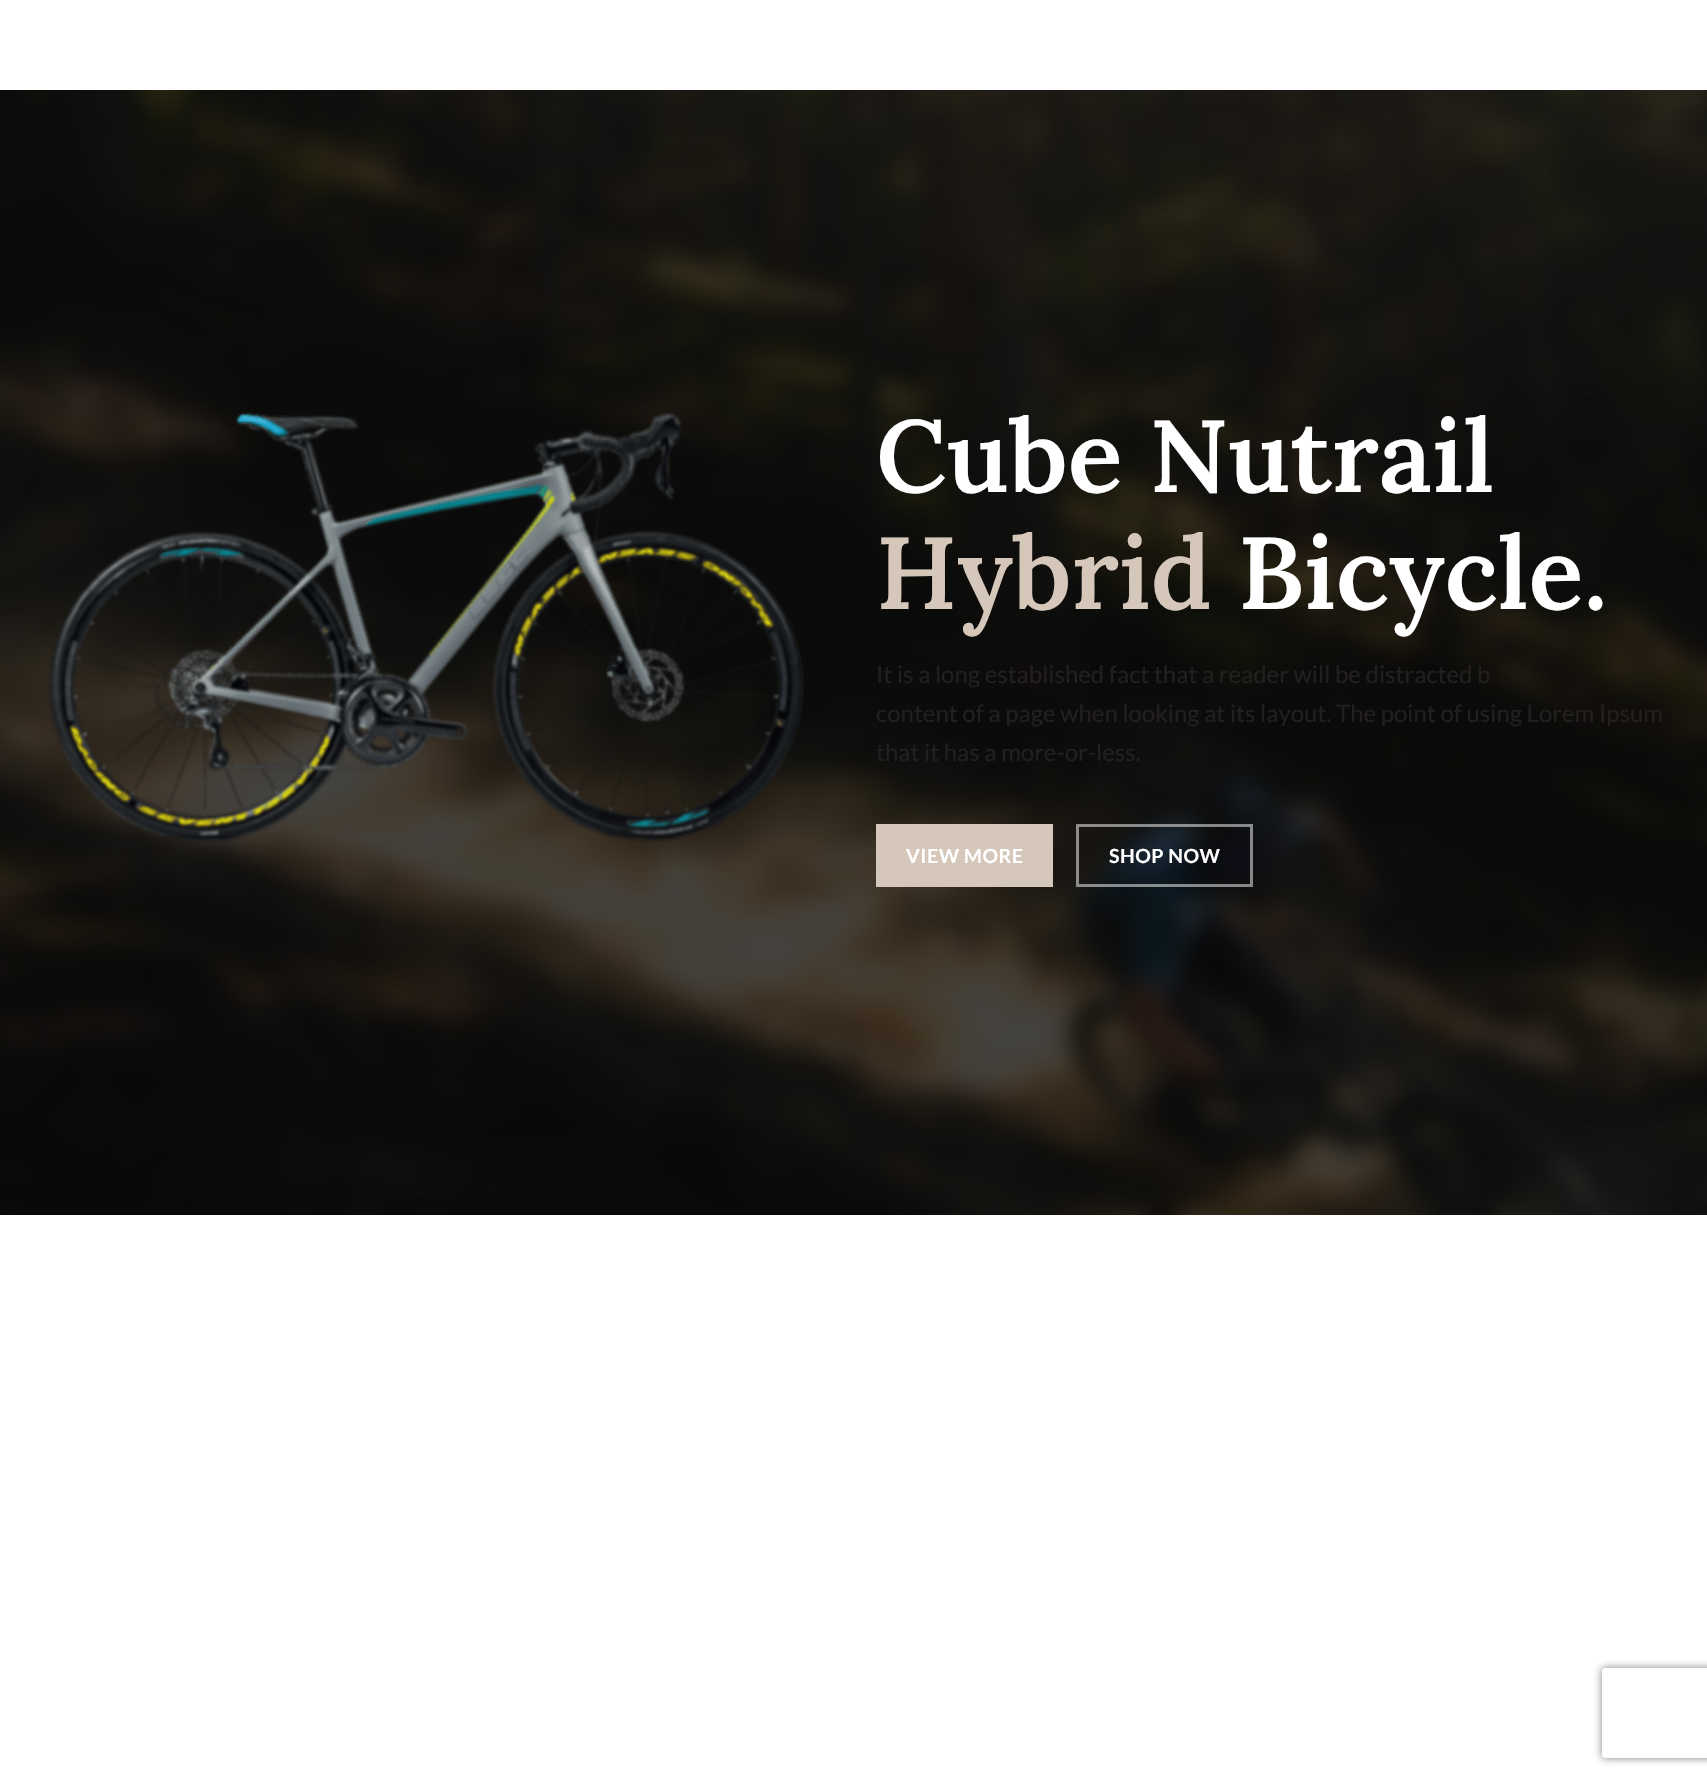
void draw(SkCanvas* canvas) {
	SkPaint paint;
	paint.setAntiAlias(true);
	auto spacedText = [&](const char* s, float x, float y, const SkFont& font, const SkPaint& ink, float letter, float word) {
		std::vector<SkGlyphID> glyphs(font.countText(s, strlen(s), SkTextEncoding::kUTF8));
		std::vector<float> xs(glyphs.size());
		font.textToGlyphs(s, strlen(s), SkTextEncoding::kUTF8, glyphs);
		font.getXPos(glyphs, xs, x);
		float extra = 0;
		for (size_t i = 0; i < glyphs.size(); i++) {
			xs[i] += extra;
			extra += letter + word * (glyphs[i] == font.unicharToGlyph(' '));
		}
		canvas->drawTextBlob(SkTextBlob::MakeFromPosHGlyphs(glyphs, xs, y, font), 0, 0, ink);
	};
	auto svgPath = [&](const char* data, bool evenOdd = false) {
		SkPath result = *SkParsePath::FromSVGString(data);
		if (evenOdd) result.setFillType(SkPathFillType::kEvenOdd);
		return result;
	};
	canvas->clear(0xffffffff);
	canvas->drawImageRect(SkImages::DeferredFromEncodedData(SkData::MakeFromFileName("img1.png")), SkRect::MakeXYWH(0, 90, 1707, 1125), SkSamplingOptions());
	canvas->drawImageRect(SkImages::DeferredFromEncodedData(SkData::MakeFromFileName("img2.png")), SkRect::MakeXYWH(48, 412, 756, 430), SkSamplingOptions());
	SkFont f1(fontMgr->matchFamilyStyle("Lora", SkFontStyle(600, SkFontStyle::kNormal_Width, SkFontStyle::kUpright_Slant)), 102);
	f1.setSubpixel(true);
	paint.setColor(0xffffffff);
	canvas->drawString("Cube Nutrail", 876, 492, f1, paint);
	paint.setColor(0xffd5c7ba);
	canvas->drawString("Hybrid", 876, 609, f1, paint);
	paint.setColor(0xffffffff);
	canvas->drawString("Bicycle.", 1238, 609, f1, paint);
	SkFont f2(fontMgr->matchFamilyStyle("Lato", SkFontStyle::Normal()), 24);
	f2.setSubpixel(true);
	paint.setColor(0xff231f20);
	canvas->drawString("It is a long established fact that a reader will be distracted b", 876, 683, f2, paint);
	canvas->drawString("content of a page when looking at its layout. The point of using Lorem Ipsum", 876, 722, f2, paint);
	canvas->drawString("that it has a more-or-less.", 876, 761, f2, paint);
	paint.setColor(0xffd5c7ba);
	canvas->drawRect(SkRect::MakeXYWH(876, 824, 177, 63), paint);
	SkFont f3(fontMgr->matchFamilyStyle("Lato", SkFontStyle::Bold()), 19.5);
	f3.setSubpixel(true);
	paint.setColor(0xffffffff);
	spacedText("VIEW MORE", 906, 863, f3, paint, 0.5, 0);
	paint.setStroke(true);
	paint.setStrokeWidth(3);
	paint.setColor(0x80ffffff);
	canvas->drawRect(SkRect::MakeXYWH(1077.5, 825.5, 174, 60), paint);
	paint.setStroke(false);
	paint.setColor(0xffffffff);
	spacedText("SHOP NOW", 1109, 863, f3, paint, 0.5, 0);
	canvas->save();
	canvas->clipPath(svgPath("M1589 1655H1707V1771H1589ZM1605 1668H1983C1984.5 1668 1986 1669.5 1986 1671V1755C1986 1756.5 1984.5 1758 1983 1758H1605C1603.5 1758 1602 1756.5 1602 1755V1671C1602 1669.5 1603.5 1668 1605 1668Z", true), true);
	paint.setColor(0xff808080);
	paint.setMaskFilter(SkMaskFilter::MakeBlur(kNormal_SkBlurStyle, 4));
	canvas->drawRoundRect(SkRect::MakeXYWH(1602, 1668, 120, 90), 3, 3, paint);
	paint.setMaskFilter(nullptr);
	canvas->restore();
}
